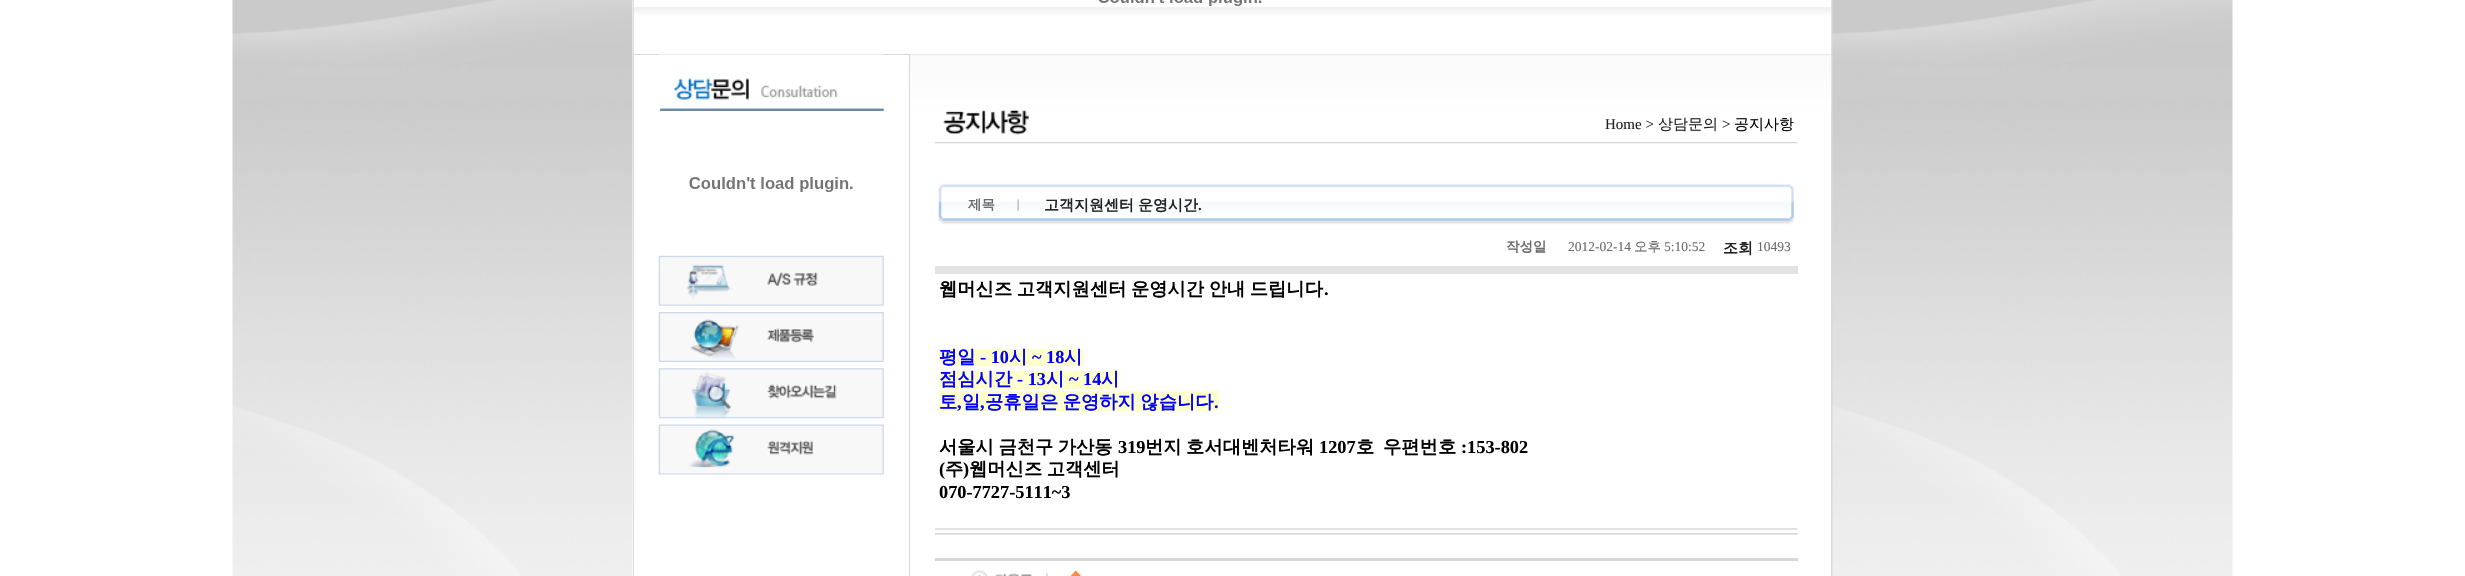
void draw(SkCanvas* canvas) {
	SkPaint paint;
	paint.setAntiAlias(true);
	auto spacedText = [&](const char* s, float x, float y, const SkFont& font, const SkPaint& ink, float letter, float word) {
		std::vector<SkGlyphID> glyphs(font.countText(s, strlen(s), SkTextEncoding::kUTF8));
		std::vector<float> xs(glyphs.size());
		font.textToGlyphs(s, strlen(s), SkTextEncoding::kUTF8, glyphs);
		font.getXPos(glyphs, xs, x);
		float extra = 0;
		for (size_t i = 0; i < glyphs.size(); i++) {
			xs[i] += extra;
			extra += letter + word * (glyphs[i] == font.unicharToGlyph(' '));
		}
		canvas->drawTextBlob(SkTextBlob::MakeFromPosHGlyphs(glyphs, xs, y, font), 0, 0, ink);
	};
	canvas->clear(0xffffffff);
	canvas->drawImageRect(SkImages::DeferredFromEncodedData(SkData::MakeFromFileName("img1.png")), SkRect::MakeXYWH(232, 0, 401, 576), SkSamplingOptions());
	paint.setColor(0xffd9d9d9);
	canvas->drawRect(SkRect::MakeXYWH(633, 0, 1200, 576), paint);
	paint.setColor(0xffffffff);
	canvas->drawRect(SkRect::MakeXYWH(634, 53, 1197, 1), paint);
	canvas->drawImageRect(SkImages::DeferredFromEncodedData(SkData::MakeFromFileName("img2.png")), SkRect::MakeXYWH(633, 0, 1199, 53), SkSamplingOptions());
	canvas->drawImageRect(SkImages::DeferredFromEncodedData(SkData::MakeFromFileName("img3.png")), SkRect::MakeXYWH(1098, 0, 164, 6), SkSamplingOptions());
	paint.setColor(0xfffafbf9);
	canvas->drawRect(SkRect::MakeXYWH(1827, 0, 1, 1), paint);
	paint.setColor(0xffffffff);
	canvas->drawRect(SkRect::MakeXYWH(634, 55, 1197, 521), paint);
	canvas->drawImageRect(SkImages::DeferredFromEncodedData(SkData::MakeFromFileName("img4.png")), SkRect::MakeXYWH(658, 54, 226, 57), SkSamplingOptions());
	canvas->drawImageRect(SkImages::DeferredFromEncodedData(SkData::MakeFromFileName("img5.png")), SkRect::MakeXYWH(689, 177, 164, 15), SkSamplingOptions());
	canvas->drawImageRect(SkImages::DeferredFromEncodedData(SkData::MakeFromFileName("img6.png")), SkRect::MakeXYWH(658, 255, 226, 51), SkSamplingOptions());
	canvas->drawImageRect(SkImages::DeferredFromEncodedData(SkData::MakeFromFileName("img7.png")), SkRect::MakeXYWH(658, 312, 226, 50), SkSamplingOptions());
	canvas->drawImageRect(SkImages::DeferredFromEncodedData(SkData::MakeFromFileName("img8.png")), SkRect::MakeXYWH(658, 368, 226, 51), SkSamplingOptions());
	canvas->drawImageRect(SkImages::DeferredFromEncodedData(SkData::MakeFromFileName("img9.png")), SkRect::MakeXYWH(658, 424, 226, 51), SkSamplingOptions());
	paint.setColor(0xffd9d9d9);
	canvas->drawRect(SkRect::MakeXYWH(909, 55, 1, 521), paint);
	canvas->drawImageRect(SkImages::DeferredFromEncodedData(SkData::MakeFromFileName("img10.png")), SkRect::MakeXYWH(910, 54, 922, 57), SkSamplingOptions());
	canvas->drawImageRect(SkImages::DeferredFromEncodedData(SkData::MakeFromFileName("img11.png")), SkRect::MakeXYWH(943, 110, 86, 25), SkSamplingOptions());
	SkFont f1(fontMgr->matchFamilyStyle("Liberation Serif", SkFontStyle::Normal()), 15);
	f1.setSubpixel(true);
	paint.setColor(0xff222222);
	canvas->drawString("Home >", 1605, 129, f1, paint);
	SkFont f2(fontMgr->matchFamilyStyle("WenQuanYi Zen Hei", SkFontStyle(500, SkFontStyle::kNormal_Width, SkFontStyle::kUpright_Slant)), 15);
	f2.setSubpixel(true);
	canvas->drawString("상담문의", 1658, 129, f2, paint);
	canvas->drawString(">", 1722, 129, f1, paint);
	paint.setColor(0xff000000);
	canvas->drawString("공지사항", 1734, 129, f2, paint);
	canvas->drawImageRect(SkImages::DeferredFromEncodedData(SkData::MakeFromFileName("img12.png")), SkRect::MakeXYWH(935, 142, 863, 2), SkSamplingOptions());
	canvas->drawImageRect(SkImages::DeferredFromEncodedData(SkData::MakeFromFileName("img13.png")), SkRect::MakeXYWH(938, 184, 5, 39), SkSamplingOptions());
	canvas->drawImageRect(SkImages::DeferredFromEncodedData(SkData::MakeFromFileName("img14.png")), SkRect::MakeXYWH(942, 184, 848, 41), SkSamplingOptions());
	SkFont f3(fontMgr->matchFamilyStyle("WenQuanYi Zen Hei", SkFontStyle::Bold()), 13.5);
	f3.setSubpixel(true);
	paint.setColor(0xff6b6b6b);
	canvas->drawString("제목", 968, 209, f3, paint);
	canvas->drawImageRect(SkImages::DeferredFromEncodedData(SkData::MakeFromFileName("img15.png")), SkRect::MakeXYWH(1017, 199, 2, 12), SkSamplingOptions());
	SkFont f4(fontMgr->matchFamilyStyle("WenQuanYi Zen Hei", SkFontStyle::Bold()), 15);
	f4.setSubpixel(true);
	paint.setColor(0xff222222);
	canvas->drawString("고객지원센터", 1044, 210, f4, paint);
	canvas->drawString("운영시간", 1138, 210, f4, paint);
	SkFont f5(fontMgr->matchFamilyStyle("Liberation Serif", SkFontStyle::Bold()), 15);
	f5.setSubpixel(true);
	canvas->drawString(".", 1198, 210, f5, paint);
	canvas->drawImageRect(SkImages::DeferredFromEncodedData(SkData::MakeFromFileName("img16.png")), SkRect::MakeXYWH(1790, 184, 4, 39), SkSamplingOptions());
	paint.setColor(0xff6b6b6b);
	canvas->drawString("작성일", 1506, 251, f3, paint);
	SkFont f6(fontMgr->matchFamilyStyle("Liberation Serif", SkFontStyle::Normal()), 13.5);
	f6.setSubpixel(true);
	canvas->drawString("2012-02-14", 1568, 251, f6, paint);
	SkFont f7(fontMgr->matchFamilyStyle("WenQuanYi Zen Hei", SkFontStyle(500, SkFontStyle::kNormal_Width, SkFontStyle::kUpright_Slant)), 13.5);
	f7.setSubpixel(true);
	canvas->drawString("오후", 1634, 251, f7, paint);
	canvas->drawString("5:10:52", 1664, 251, f6, paint);
	paint.setColor(0xff222222);
	canvas->drawString("조회", 1723, 253, f4, paint);
	paint.setColor(0xff6b6b6b);
	canvas->drawString("10493", 1757, 251, f6, paint);
	paint.setColor(0xffe3e3e3);
	canvas->drawRect(SkRect::MakeXYWH(935, 266, 863, 8), paint);
	SkFont f8(fontMgr->matchFamilyStyle("WenQuanYi Zen Hei", SkFontStyle::Bold()), 18.3);
	f8.setSubpixel(true);
	paint.setColor(0xff000000);
	spacedText("웹머신즈 고객지원센터 운영시간 안내 드립니다", 939, 295, f8, paint, 0, -1);
	SkFont f9(fontMgr->matchFamilyStyle("Liberation Serif", SkFontStyle::Bold()), 18.3);
	f9.setSubpixel(true);
	canvas->drawString(".", 1324, 295, f9, paint);
	paint.setColor(0xffffffcc);
	canvas->drawRect(SkRect::MakeXYWH(939, 349, 144, 17), paint);
	paint.setColor(0xff0000ff);
	canvas->drawString("평일", 939, 363, f8, paint);
	canvas->drawString("- 10", 980, 363, f9, paint);
	canvas->drawString("시", 1009, 363, f8, paint);
	canvas->drawString("~ 18", 1032, 363, f9, paint);
	canvas->drawString("시", 1064, 363, f8, paint);
	paint.setColor(0xffffffcc);
	canvas->drawRect(SkRect::MakeXYWH(939, 371, 180, 18), paint);
	paint.setColor(0xff0000ff);
	canvas->drawString("점심시간", 939, 385, f8, paint);
	canvas->drawString("- 13", 1017, 385, f9, paint);
	canvas->drawString("시", 1046, 385, f8, paint);
	canvas->drawString("~ 14", 1069, 385, f9, paint);
	canvas->drawString("시", 1101, 385, f8, paint);
	paint.setColor(0xffffffcc);
	canvas->drawRect(SkRect::MakeXYWH(939, 391, 280, 20), paint);
	paint.setColor(0xff0000ff);
	canvas->drawString("토", 939, 408, f8, paint);
	canvas->drawString(",", 957, 408, f9, paint);
	canvas->drawString("일", 962, 408, f8, paint);
	canvas->drawString(",", 980, 408, f9, paint);
	spacedText("공휴일은 운영하지 않습니다", 985, 408, f8, paint, 0, -1);
	canvas->drawString(".", 1214, 408, f9, paint);
	paint.setColor(0xff000000);
	spacedText("서울시 금천구 가산동", 939, 453, f8, paint, 0, -1);
	canvas->drawString("319", 1118, 453, f9, paint);
	spacedText("번지 호서대벤처타워", 1145, 453, f8, paint, 0, -1);
	canvas->drawString("1207", 1319, 453, f9, paint);
	canvas->drawString("호", 1356, 453, f8, paint);
	canvas->drawString("우편번호", 1383, 453, f8, paint);
	canvas->drawString(":153-802", 1461, 453, f9, paint);
	canvas->drawString("(", 939, 475, f9, paint);
	canvas->drawString("주", 945, 475, f8, paint);
	canvas->drawString(")", 963, 475, f9, paint);
	spacedText("웹머신즈 고객센터", 969, 475, f8, paint, 0, -1);
	canvas->drawString("070-7727-5111~3", 939, 498, f9, paint);
	canvas->drawImageRect(SkImages::DeferredFromEncodedData(SkData::MakeFromFileName("img17.png")), SkRect::MakeXYWH(935, 528, 863, 7), SkSamplingOptions());
	paint.setColor(0xffd7d7d7);
	canvas->drawRect(SkRect::MakeXYWH(935, 558, 863, 3), paint);
	canvas->drawImageRect(SkImages::DeferredFromEncodedData(SkData::MakeFromFileName("img18.png")), SkRect::MakeXYWH(971, 570, 77, 6), SkSamplingOptions());
	canvas->drawImageRect(SkImages::DeferredFromEncodedData(SkData::MakeFromFileName("img19.png")), SkRect::MakeXYWH(1070, 570, 12, 6), SkSamplingOptions());
	canvas->drawImageRect(SkImages::DeferredFromEncodedData(SkData::MakeFromFileName("img20.png")), SkRect::MakeXYWH(1832, 0, 401, 576), SkSamplingOptions());
}
